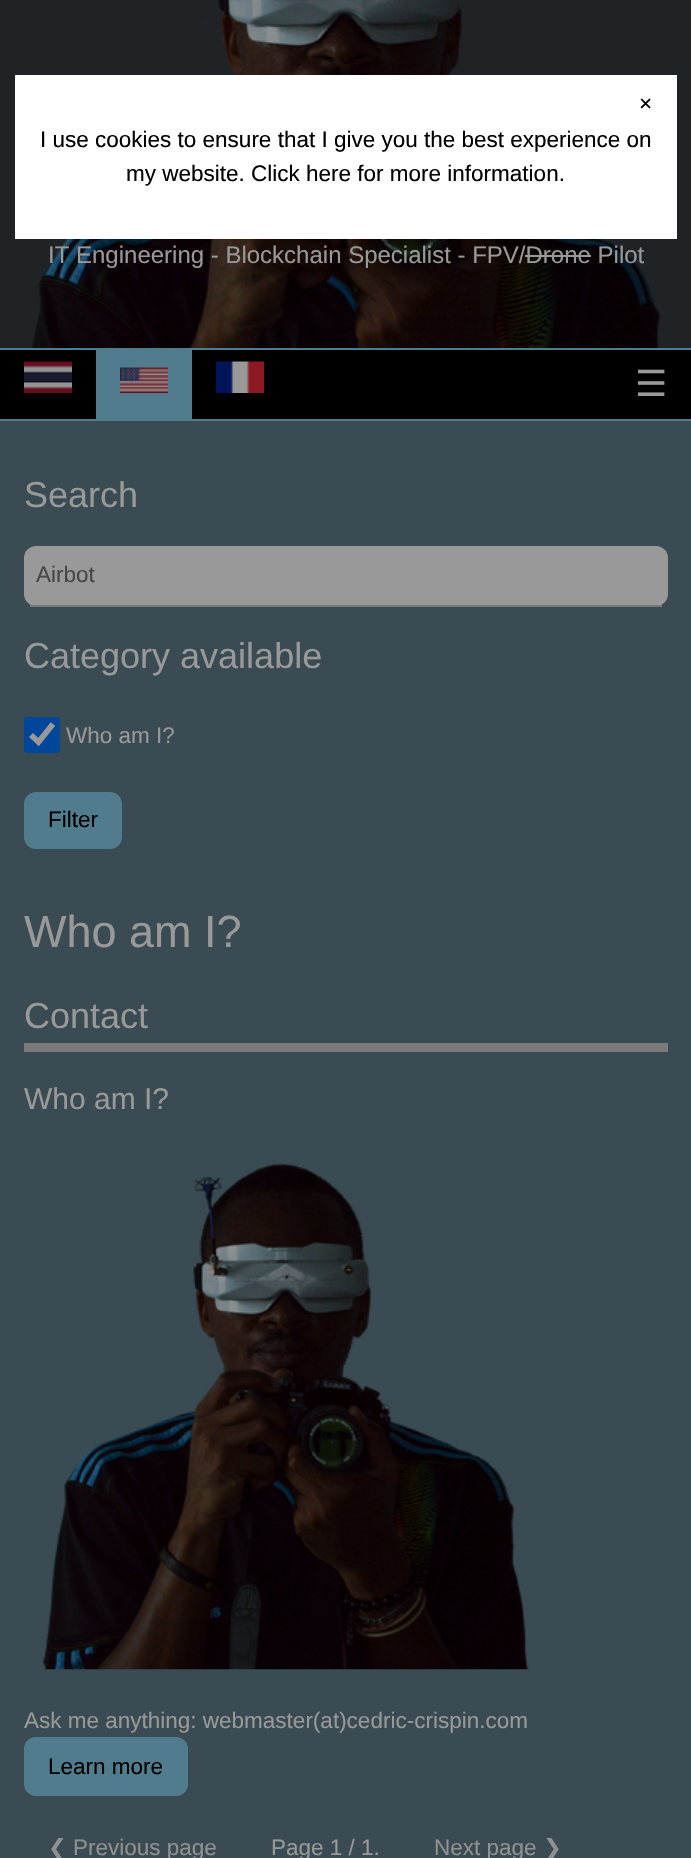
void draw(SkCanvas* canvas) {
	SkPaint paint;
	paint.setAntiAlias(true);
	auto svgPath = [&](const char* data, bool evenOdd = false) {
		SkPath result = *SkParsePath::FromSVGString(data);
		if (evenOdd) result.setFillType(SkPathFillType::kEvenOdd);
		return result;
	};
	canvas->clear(0xff1f2326);
	canvas->drawImageRect(SkImages::DeferredFromEncodedData(SkData::MakeFromFileName("img1.png")), SkRect::MakeXYWH(31, 0, 630, 348), SkSamplingOptions());
	paint.setColor(0xffffffff);
	canvas->drawRect(SkRect::MakeXYWH(15, 75, 662, 164), paint);
	SkFont f1(fontMgr->matchFamilyStyle("Liberation Sans", SkFontStyle::Normal()), 22.5);
	f1.setSubpixel(true);
	paint.setColor(0xff000000);
	canvas->drawString("×", 639, 111, f1, paint);
	canvas->drawString("I use cookies to ensure that I give you the best experience on", 40, 147, f1, paint);
	canvas->drawString("my website. Click here for more information.", 126, 181, f1, paint);
	paint.setColor(0xff517c8d);
	canvas->drawRect(SkRect::MakeXYWH(0, 348, 691, 2), paint);
	SkFont f2(fontMgr->matchFamilyStyle("Liberation Sans", SkFontStyle::Normal()), 24);
	f2.setSubpixel(true);
	paint.setColor(0xff999999);
	canvas->drawString("IT Engineering - Blockchain Specialist - FPV/Drone Pilot", 48, 263, f2, paint);
	canvas->drawRect(SkRect::MakeXYWH(525, 255, 66, 2), paint);
	paint.setColor(0xff000000);
	canvas->drawRect(SkRect::MakeXYWH(0, 350, 691, 69), paint);
	paint.setColor(0xff517c8d);
	canvas->drawRect(SkRect::MakeXYWH(0, 419, 691, 2), paint);
	canvas->drawImageRect(SkImages::DeferredFromEncodedData(SkData::MakeFromFileName("img2.png")), SkRect::MakeXYWH(24, 361, 48, 32), SkSamplingOptions());
	canvas->drawRect(SkRect::MakeXYWH(96, 350, 96, 69), paint);
	canvas->drawImageRect(SkImages::DeferredFromEncodedData(SkData::MakeFromFileName("img3.png")), SkRect::MakeXYWH(120, 367, 48, 26), SkSamplingOptions());
	canvas->drawImageRect(SkImages::DeferredFromEncodedData(SkData::MakeFromFileName("img4.png")), SkRect::MakeXYWH(216, 361, 48, 32), SkSamplingOptions());
	SkFont f3(fontMgr->matchFamilyStyle("DejaVu Sans", SkFontStyle::Normal()), 36);
	f3.setSubpixel(true);
	paint.setColor(0xff999999);
	canvas->drawString("☰", 635, 396, f3, paint);
	paint.setColor(0xff3a4b53);
	canvas->drawRect(SkRect::MakeXYWH(0, 421, 691, 1437), paint);
	SkFont f4(fontMgr->matchFamilyStyle("Liberation Sans", SkFontStyle::Normal()), 36);
	f4.setSubpixel(true);
	paint.setColor(0xff999999);
	canvas->drawString("Search", 24, 507, f4, paint);
	canvas->drawRoundRect(SkRect::MakeXYWH(24, 546, 644, 60), 12, 12, paint);
	paint.setColor(0xff7a7a7a);
	canvas->drawRect(SkRect::MakeXYWH(30, 605, 632, 2), paint);
	paint.setColor(0xff464646);
	canvas->drawString("Airbot", 36, 582, f1, paint);
	paint.setColor(0xff999999);
	canvas->drawString("Category available", 24, 668, f4, paint);
	paint.setColor(0xff004699);
	canvas->drawRoundRect(SkRect::MakeXYWH(24, 717, 36, 36), 3, 3, paint);
	paint.setStroke(true);
	paint.setStrokeWidth(5.8);
	paint.setColor(0xff999999);
	canvas->drawPath(svgPath("M31 735L38.5 742L53 724"), paint);
	paint.setStroke(false);
	canvas->drawString("Who am I?", 66, 743, f1, paint);
	paint.setColor(0xff517c8d);
	canvas->drawRoundRect(SkRect::MakeXYWH(24, 792, 98, 57), 12, 12, paint);
	paint.setColor(0xff000000);
	canvas->drawString("Filter", 48, 827, f1, paint);
	SkFont f5(fontMgr->matchFamilyStyle("Liberation Sans", SkFontStyle::Normal()), 45);
	f5.setSubpixel(true);
	paint.setColor(0xff999999);
	canvas->drawString("Who am I?", 24, 947, f5, paint);
	paint.setColor(0xff7a7a7a);
	canvas->drawRect(SkRect::MakeXYWH(24, 1043, 644, 9), paint);
	paint.setColor(0xff999999);
	canvas->drawString("Contact", 24, 1028, f4, paint);
	SkFont f6(fontMgr->matchFamilyStyle("Liberation Sans", SkFontStyle::Normal()), 30);
	f6.setSubpixel(true);
	canvas->drawString("Who am I?", 24, 1109, f6, paint);
	canvas->drawImageRect(SkImages::DeferredFromEncodedData(SkData::MakeFromFileName("img5.png")), SkRect::MakeXYWH(42, 1163, 487, 507), SkSamplingOptions());
	canvas->drawString("Ask me anything: webmaster(at)cedric-crispin.com", 24, 1728, f1, paint);
	paint.setColor(0xff517c8d);
	canvas->drawRoundRect(SkRect::MakeXYWH(24, 1737, 164, 59), 12, 12, paint);
	paint.setColor(0xff000000);
	canvas->drawString("Learn more", 48, 1774, f1, paint);
	SkFont f7(fontMgr->matchFamilyStyle("DejaVu Sans", SkFontStyle::Normal()), 22.5);
	f7.setSubpixel(true);
	paint.setColor(0xff919191);
	canvas->drawString("❮", 48, 1855, f7, paint);
	canvas->drawString("Previous page", 73, 1855, f1, paint);
	paint.setColor(0xff999999);
	canvas->drawString("Page 1 / 1.", 271, 1855, f1, paint);
	paint.setColor(0xff919191);
	canvas->drawString("Next page", 434, 1855, f1, paint);
	canvas->drawString("❯", 543, 1855, f7, paint);
}
